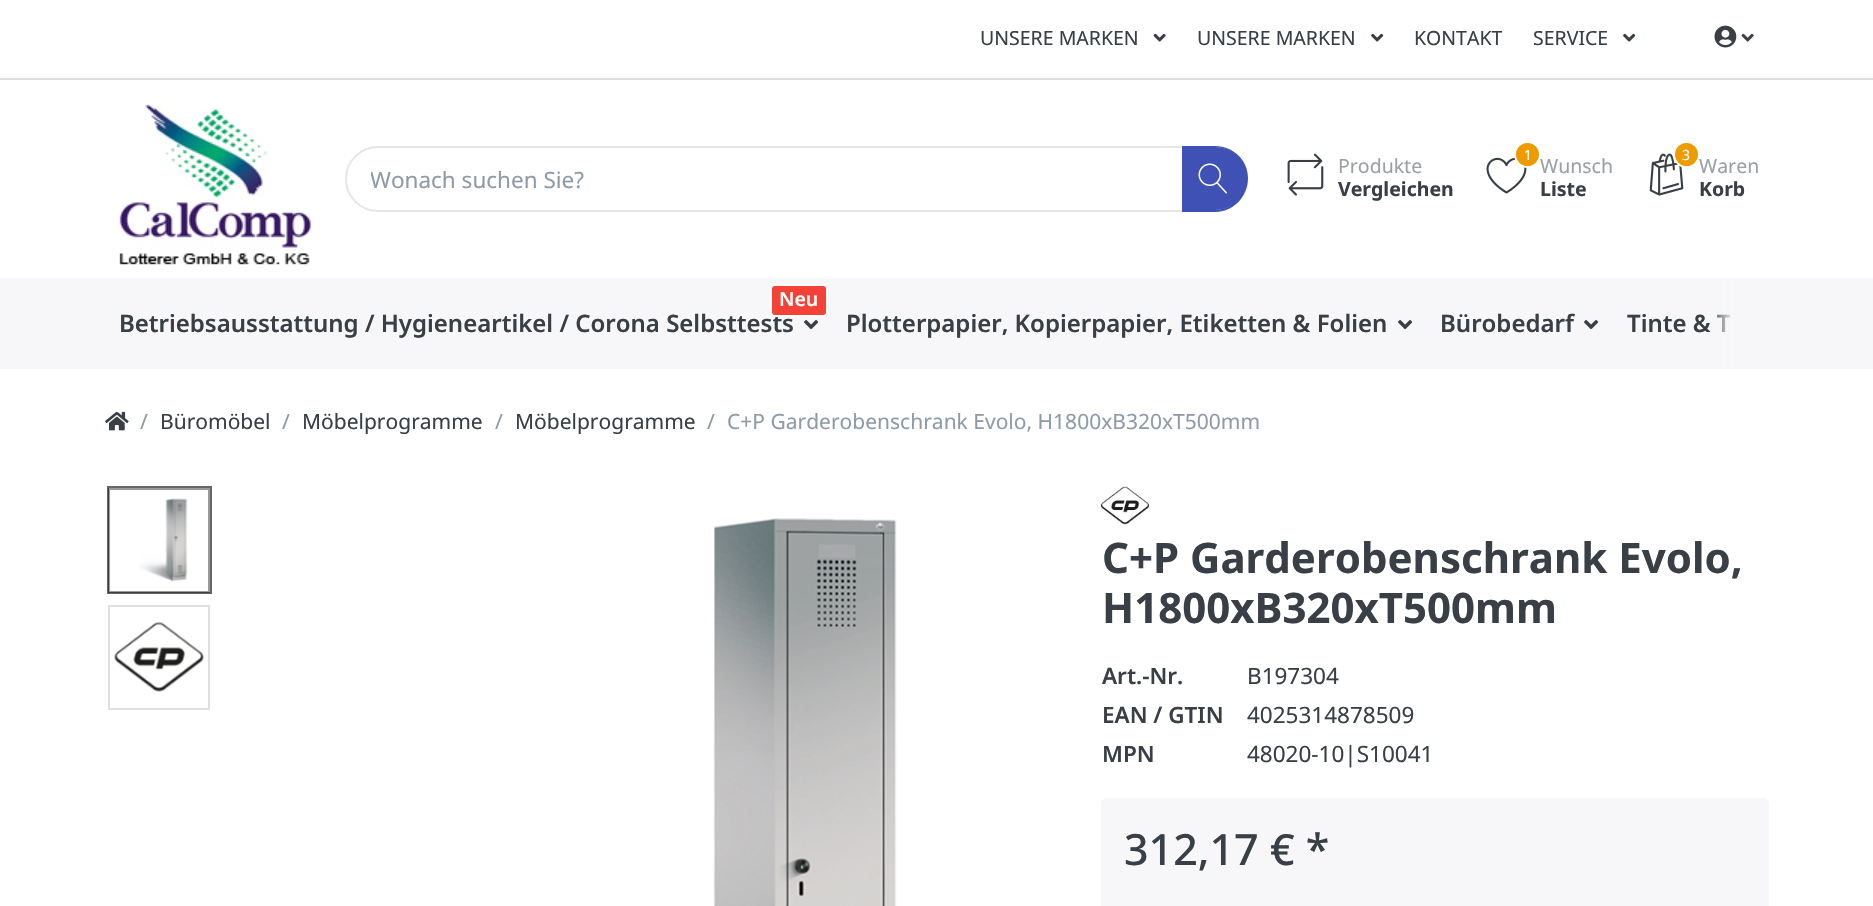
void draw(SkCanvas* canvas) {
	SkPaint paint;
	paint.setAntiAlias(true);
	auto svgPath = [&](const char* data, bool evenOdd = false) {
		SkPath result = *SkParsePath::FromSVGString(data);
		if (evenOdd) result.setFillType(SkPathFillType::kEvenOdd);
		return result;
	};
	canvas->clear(0xffffffff);
	paint.setColor(0xffdddddd);
	canvas->drawRect(SkRect::MakeXYWH(0, 78, 1873, 2), paint);
	SkFont f1(fontMgr->matchFamilyStyle("Noto Sans", SkFontStyle::Normal()), 19.5);
	f1.setSubpixel(true);
	paint.setColor(0xff393f46);
	canvas->drawString("UNSERE MARKEN", 980, 45, f1, paint);
	canvas->drawImageRect(SkImages::DeferredFromEncodedData(SkData::MakeFromFileName("img1.png")), SkRect::MakeXYWH(1153, 33, 13, 9), SkSamplingOptions());
	canvas->drawString("UNSERE MARKEN", 1197, 45, f1, paint);
	canvas->drawImageRect(SkImages::DeferredFromEncodedData(SkData::MakeFromFileName("img2.png")), SkRect::MakeXYWH(1371, 33, 13, 9), SkSamplingOptions());
	canvas->drawString("KONTAKT", 1414, 45, f1, paint);
	canvas->drawString("SERVICE", 1533, 45, f1, paint);
	canvas->drawImageRect(SkImages::DeferredFromEncodedData(SkData::MakeFromFileName("img2.png")), SkRect::MakeXYWH(1623, 33, 13, 9), SkSamplingOptions());
	canvas->drawImageRect(SkImages::DeferredFromEncodedData(SkData::MakeFromFileName("img3.png")), SkRect::MakeXYWH(1714, 25, 23, 23), SkSamplingOptions());
	canvas->drawImageRect(SkImages::DeferredFromEncodedData(SkData::MakeFromFileName("img1.png")), SkRect::MakeXYWH(1741, 33, 13, 9), SkSamplingOptions());
	canvas->drawImageRect(SkImages::DeferredFromEncodedData(SkData::MakeFromFileName("img4.png")), SkRect::MakeXYWH(119, 104, 193, 161), SkSamplingOptions());
	paint.setStroke(true);
	paint.setStrokeWidth(2);
	paint.setColor(0xffe6e6e6);
	canvas->drawRoundRect(SkRect::MakeXYWH(346, 147, 901, 64), 32, 32, paint);
	canvas->save();
	canvas->clipRect(SkRect::MakeXYWH(371, 164, 786, 30));
	SkFont f2(fontMgr->matchFamilyStyle("Noto Sans", SkFontStyle::Normal()), 22.5);
	f2.setSubpixel(true);
	paint.setStroke(false);
	paint.setColor(0xff8d9ba9);
	canvas->drawString("Wonach suchen Sie?", 370, 188, f2, paint);
	canvas->restore();
	paint.setColor(0xff3f51b5);
	canvas->drawPath(svgPath("M1182 147H1215.5C1233 147 1247 161 1247 178.5C1247 196 1233 210 1215.5 210H1182Z"), paint);
	canvas->drawPath(svgPath("M1182 146H1215C1233 146 1248 160 1248 178C1248 197 1233 212 1215 212H1182ZM1182 147H1215C1232 147 1246 161 1246 178C1246 196 1232 210 1215 210H1182Z", true), paint);
	canvas->drawImageRect(SkImages::DeferredFromEncodedData(SkData::MakeFromFileName("img5.png")), SkRect::MakeXYWH(1198, 163, 29, 31), SkSamplingOptions());
	canvas->drawImageRect(SkImages::DeferredFromEncodedData(SkData::MakeFromFileName("img6.png")), SkRect::MakeXYWH(1287, 153, 37, 43), SkSamplingOptions());
	paint.setColor(0xff9c9fa3);
	canvas->drawString("Produkte", 1338, 173, f1, paint);
	SkFont f3(fontMgr->matchFamilyStyle("Noto Sans", SkFontStyle::Bold()), 19.5);
	f3.setSubpixel(true);
	paint.setColor(0xff393f46);
	canvas->drawString("Vergleichen", 1338, 196, f3, paint);
	canvas->drawImageRect(SkImages::DeferredFromEncodedData(SkData::MakeFromFileName("img7.png")), SkRect::MakeXYWH(1486, 157, 41, 37), SkSamplingOptions());
	paint.setColor(0xffee9b00);
	canvas->drawCircle(1527.5, 154.5, 12.5, paint);
	paint.setStroke(true);
	paint.setColor(0xffffffff);
	canvas->drawCircle(1527.5, 154.5, 12.5, paint);
	SkFont f4(fontMgr->matchFamilyStyle("Noto Sans", SkFontStyle::Normal()), 14);
	f4.setSubpixel(true);
	paint.setStroke(false);
	canvas->drawString("1", 1524, 160, f4, paint);
	paint.setColor(0xff9c9fa3);
	canvas->drawString("Wunsch", 1540, 173, f1, paint);
	paint.setColor(0xff393f46);
	canvas->drawString("Liste", 1540, 196, f3, paint);
	canvas->drawImageRect(SkImages::DeferredFromEncodedData(SkData::MakeFromFileName("img8.png")), SkRect::MakeXYWH(1649, 153, 35, 43), SkSamplingOptions());
	paint.setColor(0xffee9b00);
	canvas->drawCircle(1686.5, 154.5, 12.5, paint);
	paint.setStroke(true);
	paint.setColor(0xffffffff);
	canvas->drawCircle(1686.5, 154.5, 12.5, paint);
	paint.setStroke(false);
	canvas->drawString("3", 1682, 160, f4, paint);
	paint.setColor(0xff9c9fa3);
	canvas->drawString("Waren", 1699, 173, f1, paint);
	paint.setColor(0xff393f46);
	canvas->drawString("Korb", 1699, 196, f3, paint);
	paint.setColor(0xfff7f7f9);
	canvas->drawRect(SkRect::MakeXYWH(0, 278, 1873, 91), paint);
	SkFont f5(fontMgr->matchFamilyStyle("Noto Sans", SkFontStyle(600, SkFontStyle::kNormal_Width, SkFontStyle::kUpright_Slant)), 24);
	f5.setSubpixel(true);
	paint.setColor(0xff393f46);
	canvas->drawString("Betriebsausstattung / Hygieneartikel / Corona Selbsttests", 119, 332, f5, paint);
	paint.setColor(0xfff44336);
	canvas->drawRoundRect(SkRect::MakeXYWH(771, 285, 56, 31), 4, 4, paint);
	paint.setStroke(true);
	paint.setColor(0xffffffff);
	canvas->drawRoundRect(SkRect::MakeXYWH(771, 285, 56, 31), 4, 4, paint);
	SkFont f6(fontMgr->matchFamilyStyle("Noto Sans", SkFontStyle(600, SkFontStyle::kNormal_Width, SkFontStyle::kUpright_Slant)), 19.5);
	f6.setSubpixel(true);
	paint.setStroke(false);
	canvas->drawString("Neu", 779, 306, f6, paint);
	canvas->drawImageRect(SkImages::DeferredFromEncodedData(SkData::MakeFromFileName("img9.png")), SkRect::MakeXYWH(804, 320, 15, 10), SkSamplingOptions());
	paint.setColor(0xff393f46);
	canvas->drawString("Plotterpapier, Kopierpapier, Etiketten & Folien", 846, 332, f5, paint);
	canvas->drawImageRect(SkImages::DeferredFromEncodedData(SkData::MakeFromFileName("img9.png")), SkRect::MakeXYWH(1398, 320, 15, 10), SkSamplingOptions());
	canvas->drawString("Bürobedarf", 1440, 332, f5, paint);
	canvas->drawImageRect(SkImages::DeferredFromEncodedData(SkData::MakeFromFileName("img9.png")), SkRect::MakeXYWH(1584, 320, 15, 10), SkSamplingOptions());
	canvas->drawString("Tinte & T", 1627, 332, f5, paint);
	{
		const SkColor colors[] = {0x00f7f7f9, 0xfff7f7f9, 0xfff7f7f9};
		const float stops[] = {0, 0.4, 1};
		const SkPoint ends[] = {{1710, 323}, {1770, 323}};
		paint.setShader(SkGradientShader::MakeLinear(ends, colors, stops, 3, SkTileMode::kClamp));
		paint.setAlpha(255);
	}
	canvas->drawRoundRect(SkRect::MakeXYWH(1710, 278, 60, 90), 6, 6, paint);
	canvas->drawImageRect(SkImages::DeferredFromEncodedData(SkData::MakeFromFileName("img10.png")), SkRect::MakeXYWH(105, 411, 24, 20), SkSamplingOptions());
	SkFont f7(fontMgr->matchFamilyStyle("Noto Sans", SkFontStyle::Normal()), 21);
	f7.setSubpixel(true);
	paint.setShader(nullptr);
	paint.setColor(0xff8d9ba9);
	canvas->drawString("/", 140, 429, f7, paint);
	paint.setColor(0xff393f46);
	canvas->drawString("Büromöbel", 160, 429, f7, paint);
	paint.setColor(0xff8d9ba9);
	canvas->drawString("/", 282, 429, f7, paint);
	paint.setColor(0xff393f46);
	canvas->drawString("Möbelprogramme", 302, 429, f7, paint);
	paint.setColor(0xff8d9ba9);
	canvas->drawString("/", 495, 429, f7, paint);
	paint.setColor(0xff393f46);
	canvas->drawString("Möbelprogramme", 515, 429, f7, paint);
	paint.setColor(0xff8d9ba9);
	canvas->drawString("/", 707, 429, f7, paint);
	canvas->drawString("C+P Garderobenschrank Evolo, H1800xB320xT500mm", 727, 429, f7, paint);
	paint.setStroke(true);
	paint.setColor(0xff666666);
	canvas->drawRect(SkRect::MakeXYWH(108, 487, 103, 106), paint);
	paint.setColor(0x66000000);
	canvas->drawRect(SkRect::MakeXYWH(109, 489, 100, 103), paint);
	canvas->drawImageRect(SkImages::DeferredFromEncodedData(SkData::MakeFromFileName("img11.png")), SkRect::MakeXYWH(139, 498, 49, 84), SkSamplingOptions());
	paint.setColor(0xffe0e0e0);
	canvas->drawRect(SkRect::MakeXYWH(109, 606, 100, 103), paint);
	canvas->drawImageRect(SkImages::DeferredFromEncodedData(SkData::MakeFromFileName("img12.png")), SkRect::MakeXYWH(114, 622, 90, 70), SkSamplingOptions());
	canvas->drawImageRect(SkImages::DeferredFromEncodedData(SkData::MakeFromFileName("img13.png")), SkRect::MakeXYWH(713, 518, 184, 388), SkSamplingOptions());
	canvas->drawImageRect(SkImages::DeferredFromEncodedData(SkData::MakeFromFileName("img14.png")), SkRect::MakeXYWH(1101, 486, 48, 39), SkSamplingOptions());
	SkFont f8(fontMgr->matchFamilyStyle("Noto Sans", SkFontStyle::Bold()), 42);
	f8.setSubpixel(true);
	paint.setStroke(false);
	paint.setColor(0xff393f46);
	canvas->drawString("C+P Garderobenschrank Evolo,", 1102, 573, f8, paint);
	canvas->drawString("H1800xB320xT500mm", 1102, 623, f8, paint);
	SkFont f9(fontMgr->matchFamilyStyle("Noto Sans", SkFontStyle(600, SkFontStyle::kNormal_Width, SkFontStyle::kUpright_Slant)), 22.5);
	f9.setSubpixel(true);
	canvas->drawString("Art.-Nr.", 1102, 684, f9, paint);
	canvas->drawString("B197304", 1247, 684, f2, paint);
	canvas->drawString("EAN / GTIN", 1102, 723, f9, paint);
	canvas->drawString("4025314878509", 1247, 723, f2, paint);
	canvas->drawString("MPN", 1102, 762, f9, paint);
	canvas->drawString("48020-10|S10041", 1247, 762, f2, paint);
	paint.setColor(0xfff7f7f9);
	canvas->drawRoundRect(SkRect::MakeXYWH(1101, 798, 668, 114), 6, 6, paint);
	SkFont f10(fontMgr->matchFamilyStyle("Noto Sans", SkFontStyle(500, SkFontStyle::kNormal_Width, SkFontStyle::kUpright_Slant)), 43);
	f10.setSubpixel(true);
	paint.setColor(0xff393f46);
	canvas->drawString("312,17 € *", 1124, 865, f10, paint);
}
